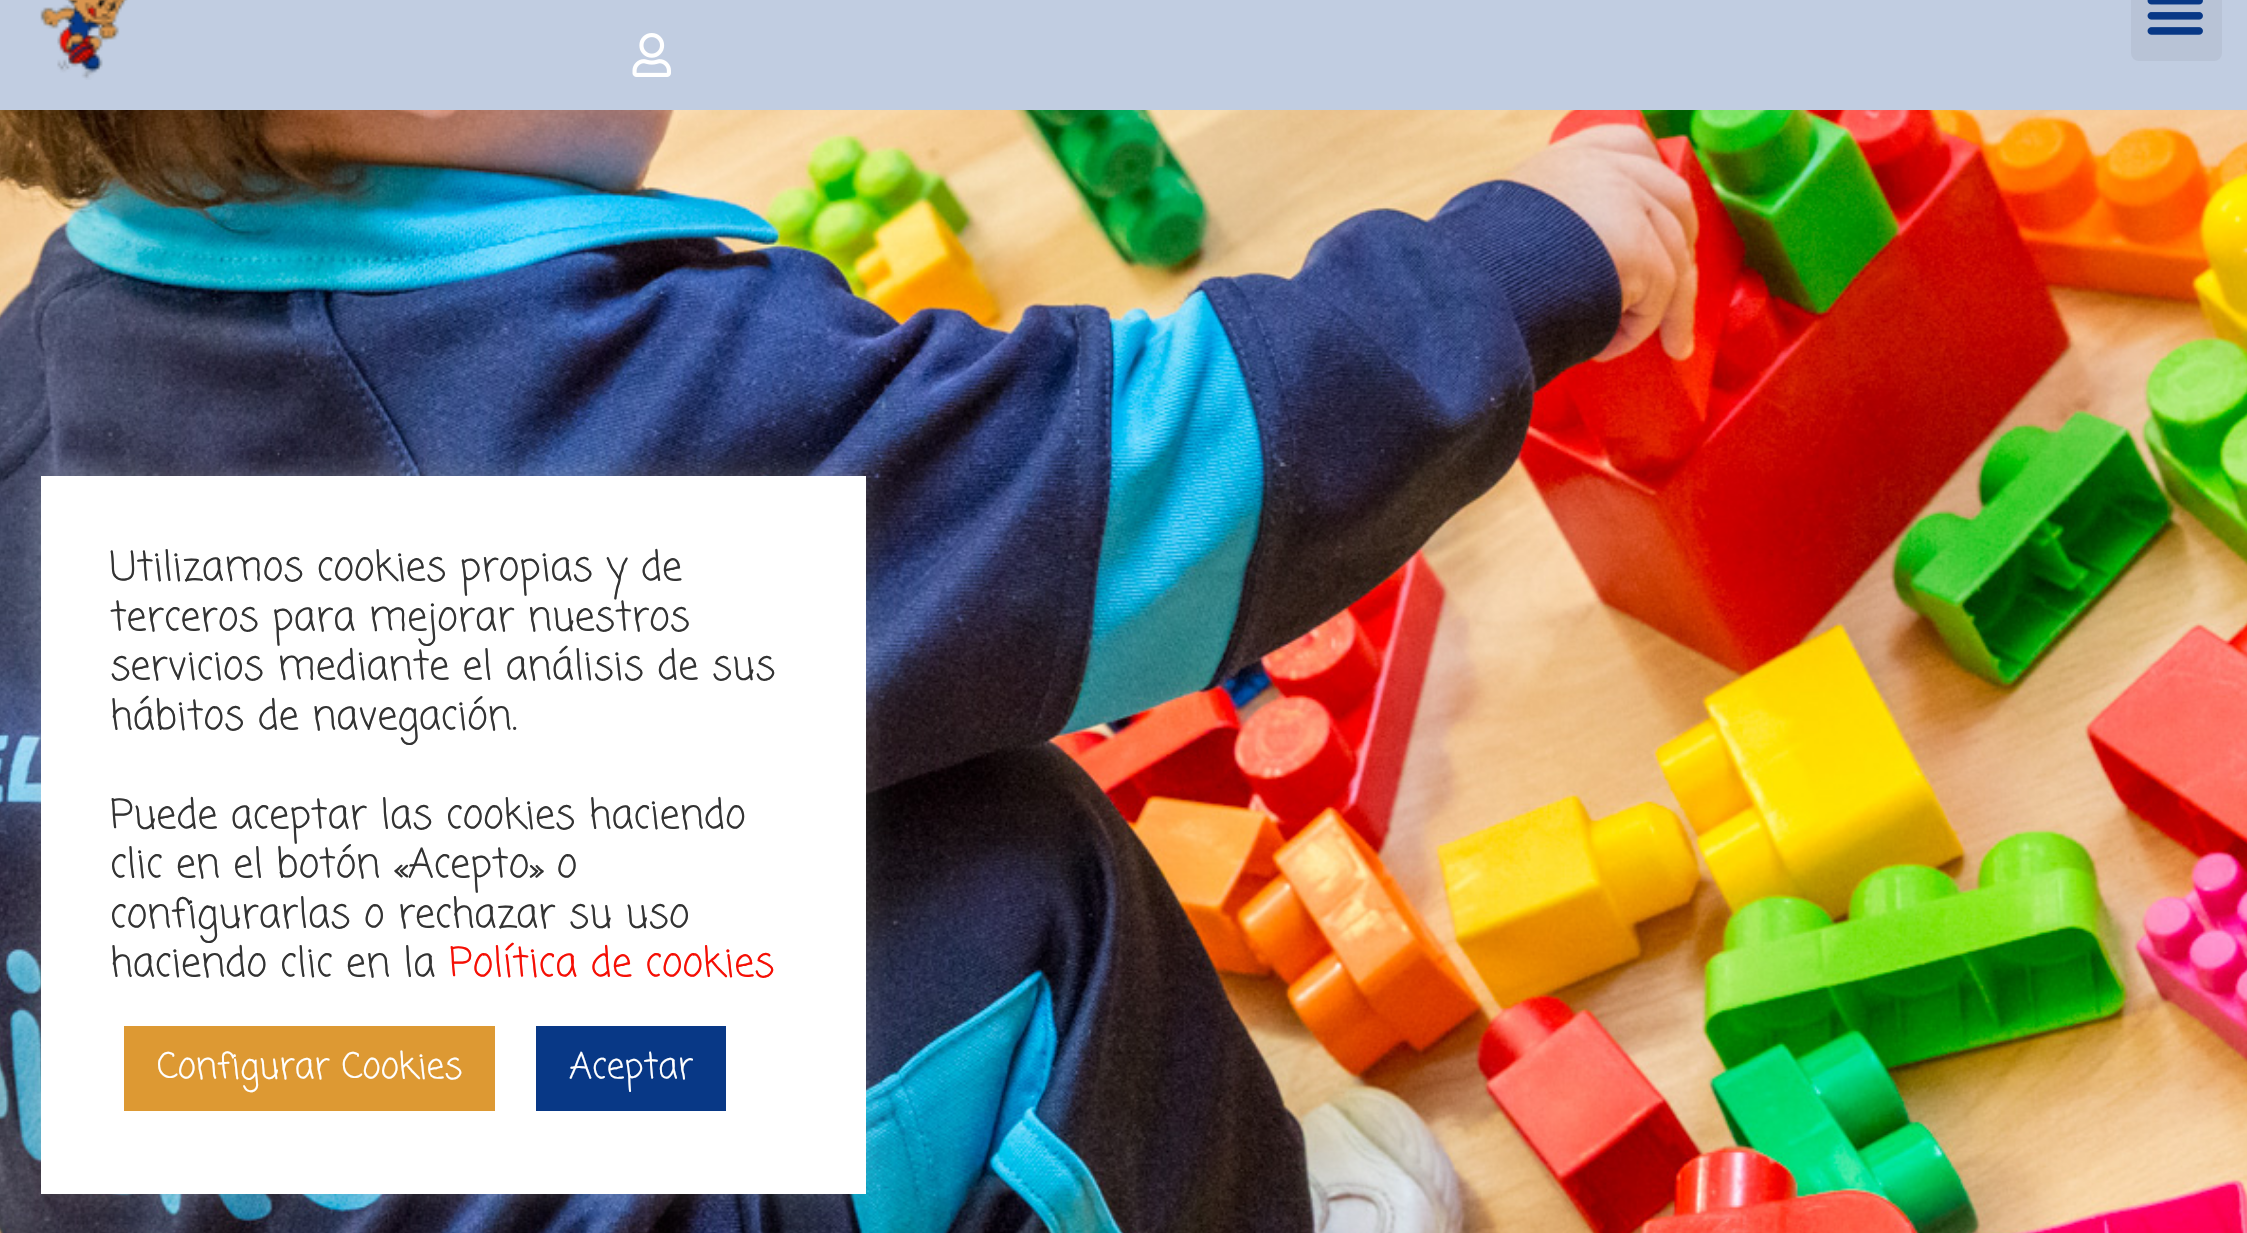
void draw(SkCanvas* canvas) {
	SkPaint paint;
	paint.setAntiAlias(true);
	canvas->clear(0xffffffff);
	paint.setColor(0xff083886);
	canvas->drawRect(SkRect::MakeXYWH(0, 0, 2247, 110), paint);
	canvas->drawImageRect(SkImages::DeferredFromEncodedData(SkData::MakeFromFileName("img3.png")), SkRect::MakeXYWH(632, 33, 39, 44), SkSamplingOptions());
	paint.setColor(0xbfffffff);
	canvas->drawRect(SkRect::MakeXYWH(0, 0, 2247, 110), paint);
	canvas->drawImageRect(SkImages::DeferredFromEncodedData(SkData::MakeFromFileName("img1.png")), SkRect::MakeXYWH(40, 0, 88, 80), SkSamplingOptions());
	paint.setColor(0xffb8c3d6);
	canvas->drawRoundRect(SkRect::MakeXYWH(2131, -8, 91, 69), 8, 8, paint);
	canvas->drawImageRect(SkImages::DeferredFromEncodedData(SkData::MakeFromFileName("img2.png")), SkRect::MakeXYWH(2147, 0, 56, 35), SkSamplingOptions());
	canvas->drawImageRect(SkImages::DeferredFromEncodedData(SkData::MakeFromFileName("img4.png")), SkRect::MakeXYWH(0, 110, 2247, 1123), SkSamplingOptions());
	paint.setColor(0x4dacabab);
	paint.setMaskFilter(SkMaskFilter::MakeBlur(kNormal_SkBlurStyle, 14));
	canvas->drawRect(SkRect::MakeXYWH(41, 473, 825, 718), paint);
	paint.setMaskFilter(nullptr);
	paint.setColor(0xffffffff);
	canvas->drawRect(SkRect::MakeXYWH(41, 476, 825, 718), paint);
	SkFont f1(fontMgr->matchFamilyStyle("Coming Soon", SkFontStyle::Normal()), 40.3);
	f1.setSubpixel(true);
	paint.setColor(0xff333333);
	canvas->drawString("Utilizamos cookies propias y de", 110, 580, f1, paint);
	canvas->drawString("terceros para mejorar nuestros", 110, 630, f1, paint);
	canvas->drawString("servicios mediante el análisis de sus", 110, 679, f1, paint);
	canvas->drawString("hábitos de navegación.", 110, 729, f1, paint);
	canvas->drawString("Puede aceptar las cookies haciendo", 110, 828, f1, paint);
	canvas->drawString("clic en el botón «Acepto» o", 110, 877, f1, paint);
	canvas->drawString("configurarlas o rechazar su uso", 110, 927, f1, paint);
	canvas->drawString("haciendo clic en la", 110, 976, f1, paint);
	paint.setColor(0xfff50f05);
	canvas->drawString("Política de cookies", 449, 976, f1, paint);
	paint.setColor(0xffdd9933);
	canvas->drawRect(SkRect::MakeXYWH(124, 1026, 371, 85), paint);
	SkFont f2(fontMgr->matchFamilyStyle("Coming Soon", SkFontStyle::Normal()), 35.75);
	f2.setSubpixel(true);
	paint.setColor(0xffffffff);
	canvas->drawString("Configurar Cookies", 157, 1078, f2, paint);
	paint.setColor(0xff083886);
	canvas->drawRect(SkRect::MakeXYWH(536, 1026, 190, 85), paint);
	paint.setColor(0xffffffff);
	canvas->drawString("Aceptar", 569, 1078, f2, paint);
}
